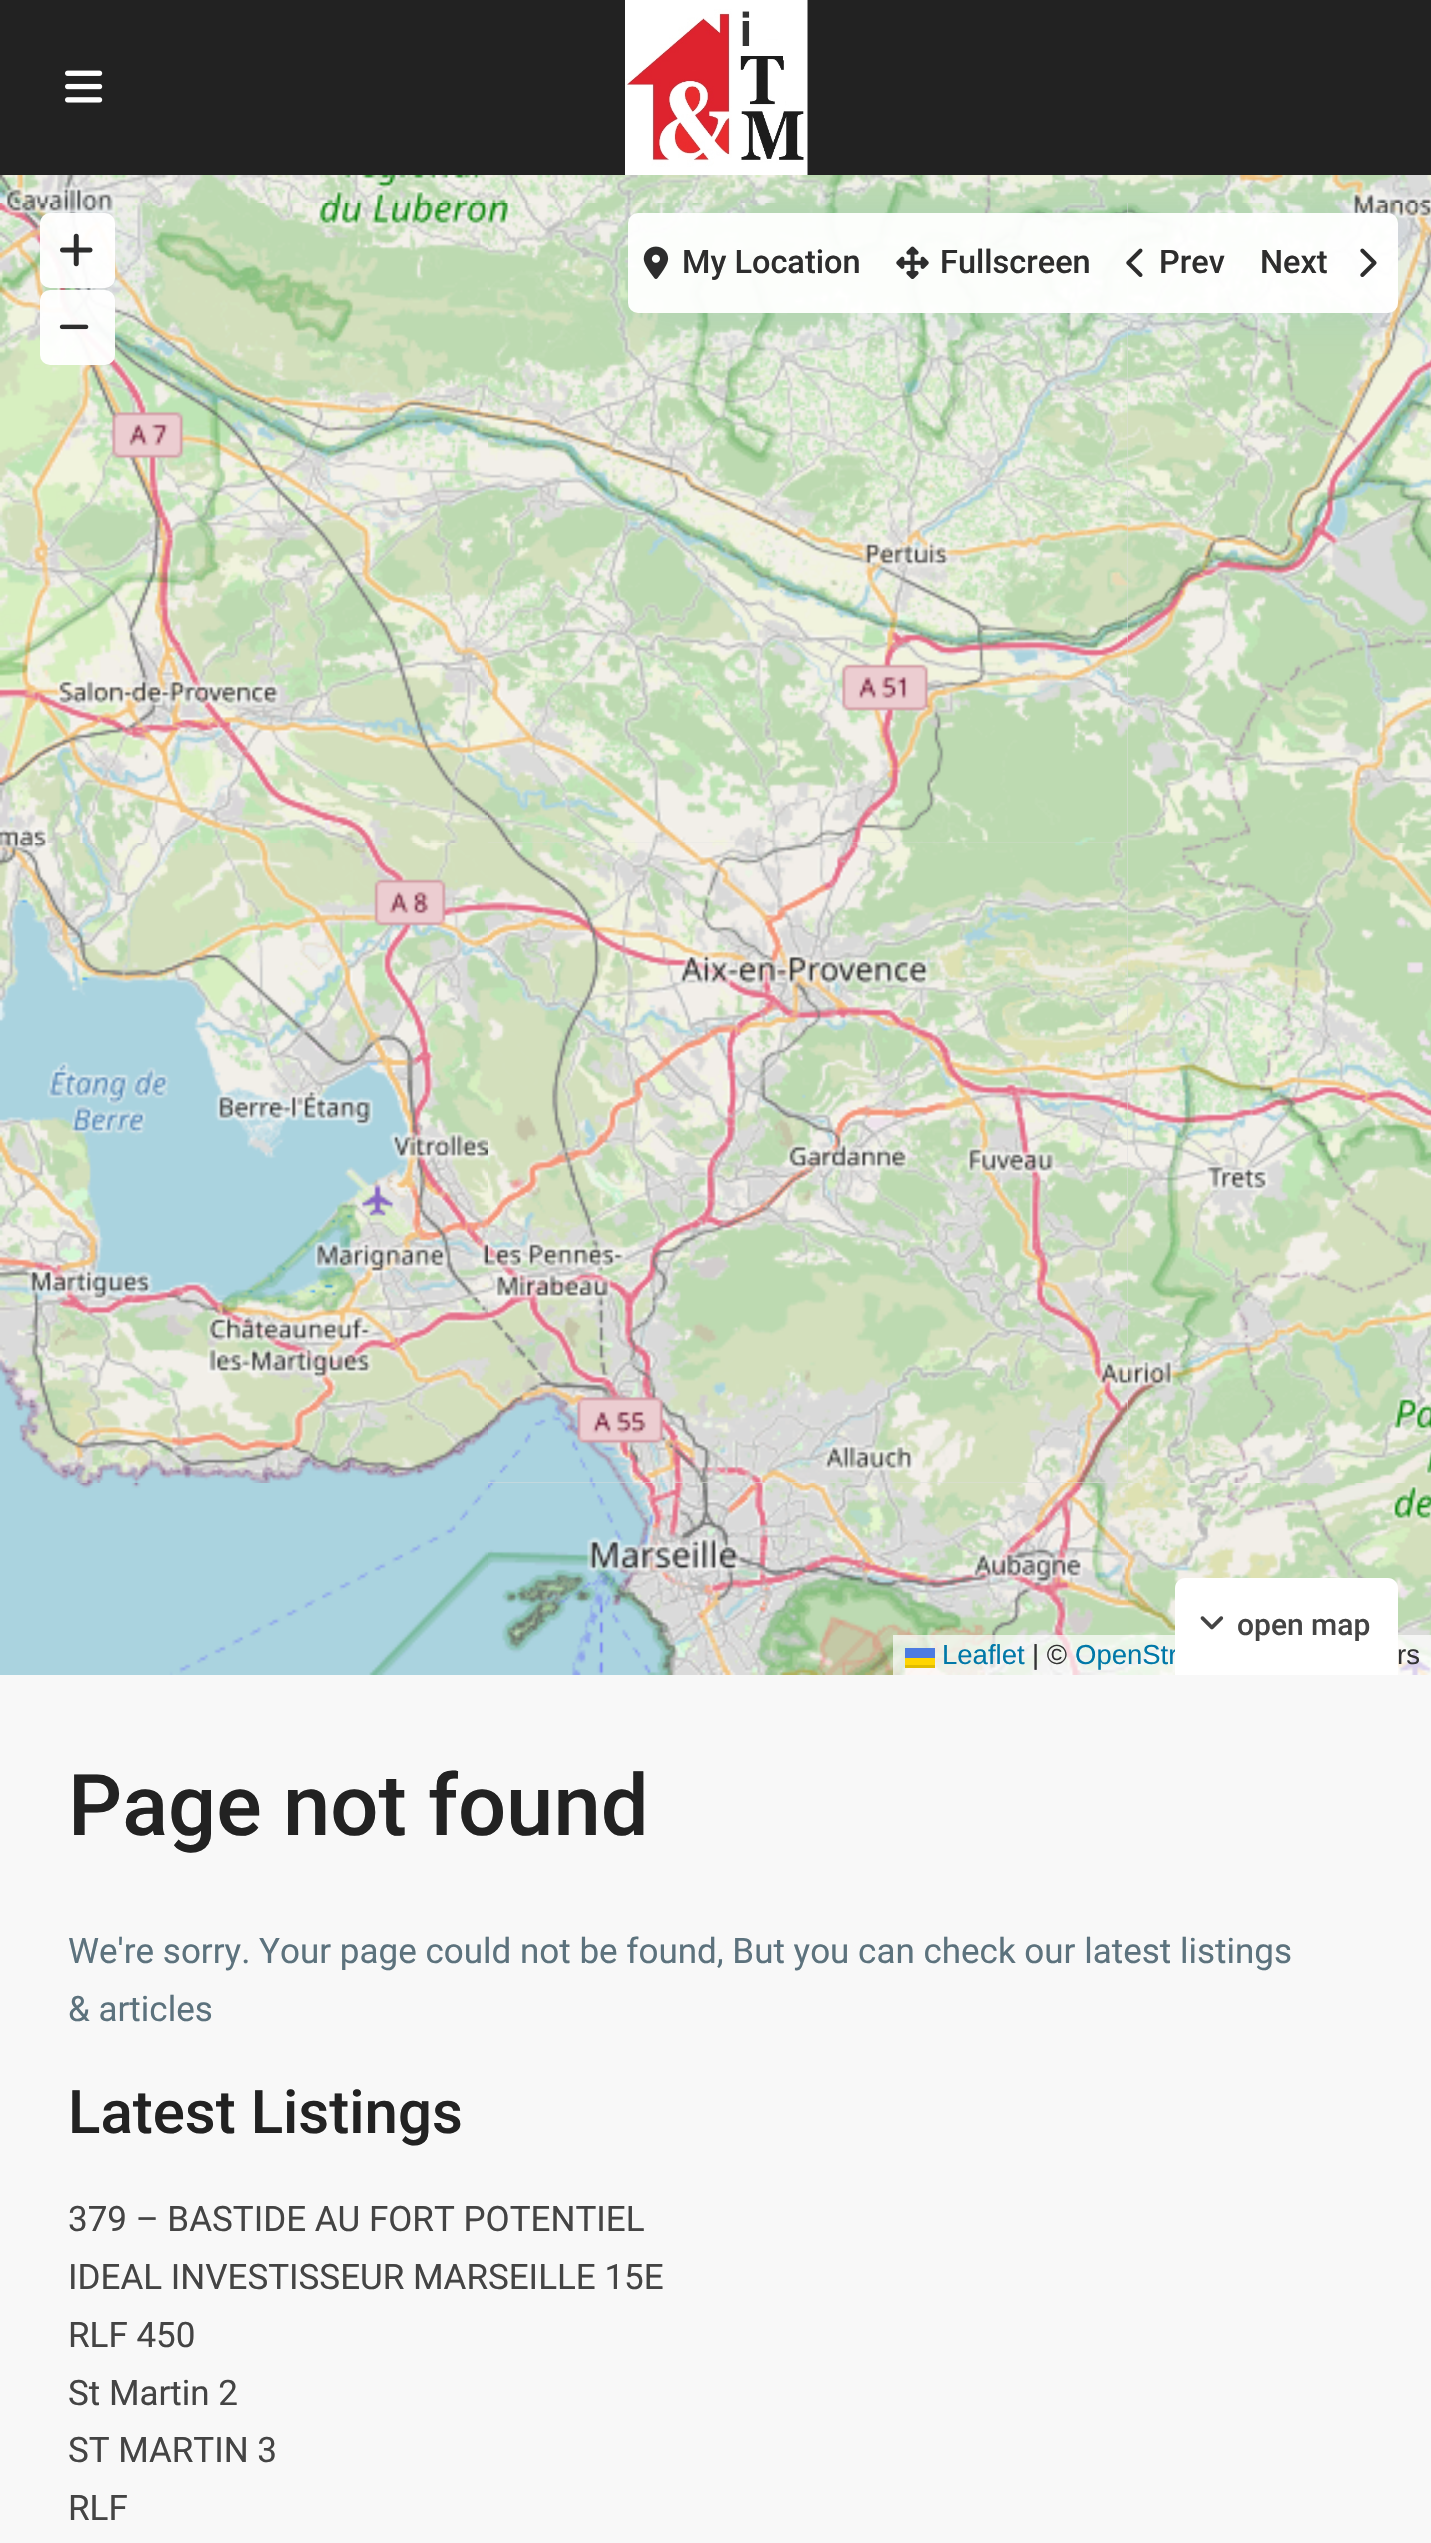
void draw(SkCanvas* canvas) {
	SkPaint paint;
	paint.setAntiAlias(true);
	auto svgPath = [&](const char* data, bool evenOdd = false) {
		SkPath result = *SkParsePath::FromSVGString(data);
		if (evenOdd) result.setFillType(SkPathFillType::kEvenOdd);
		return result;
	};
	canvas->clear(0xfff8f8f8);
	canvas->drawImageRect(SkImages::DeferredFromEncodedData(SkData::MakeFromFileName("img10.png")), SkRect::MakeXYWH(0, 175, 488, 28), SkSamplingOptions());
	canvas->drawImageRect(SkImages::DeferredFromEncodedData(SkData::MakeFromFileName("img13.png")), SkRect::MakeXYWH(0, 203, 488, 640), SkSamplingOptions());
	canvas->save();
	canvas->clipPath(svgPath("M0 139H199V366H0ZM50 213H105C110.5 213 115 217.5 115 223V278C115 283.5 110.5 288 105 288H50C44.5 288 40 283.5 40 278V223C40 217.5 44.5 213 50 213Z", true), true);
	paint.setColor(0x14006ee1);
	paint.setMaskFilter(SkMaskFilter::MakeBlur(kNormal_SkBlurStyle, 25));
	canvas->drawRoundRect(SkRect::MakeXYWH(48, 215, 75, 75), 10, 10, paint);
	paint.setMaskFilter(nullptr);
	canvas->restore();
	paint.setColor(0xffdddddd);
	canvas->drawRect(SkRect::MakeXYWH(488, 203, 640, 1280), paint);
	canvas->drawImageRect(SkImages::DeferredFromEncodedData(SkData::MakeFromFileName("img11.png")), SkRect::MakeXYWH(488, 175, 640, 28), SkSamplingOptions());
	canvas->drawImageRect(SkImages::DeferredFromEncodedData(SkData::MakeFromFileName("img12.png")), SkRect::MakeXYWH(1128, 175, 303, 28), SkSamplingOptions());
	canvas->drawImageRect(SkImages::DeferredFromEncodedData(SkData::MakeFromFileName("img14.png")), SkRect::MakeXYWH(488, 203, 640, 640), SkSamplingOptions());
	canvas->drawImageRect(SkImages::DeferredFromEncodedData(SkData::MakeFromFileName("img15.png")), SkRect::MakeXYWH(1128, 203, 303, 640), SkSamplingOptions());
	canvas->save();
	canvas->clipPath(svgPath("M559 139H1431V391H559ZM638 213H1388C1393.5 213 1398 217.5 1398 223V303C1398 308.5 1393.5 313 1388 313H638C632.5 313 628 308.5 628 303V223C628 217.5 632.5 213 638 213Z", true), true);
	paint.setColor(0x14006ee1);
	paint.setMaskFilter(SkMaskFilter::MakeBlur(kNormal_SkBlurStyle, 25));
	canvas->drawRoundRect(SkRect::MakeXYWH(635, 215, 770, 100), 10, 10, paint);
	paint.setMaskFilter(nullptr);
	canvas->restore();
	paint.setColor(0xff222222);
	canvas->drawRect(SkRect::MakeXYWH(0, 0, 1431, 175), paint);
	canvas->drawImageRect(SkImages::DeferredFromEncodedData(SkData::MakeFromFileName("img1.png")), SkRect::MakeXYWH(65, 70, 38, 33), SkSamplingOptions());
	canvas->drawImageRect(SkImages::DeferredFromEncodedData(SkData::MakeFromFileName("img2.png")), SkRect::MakeXYWH(625, 0, 183, 175), SkSamplingOptions());
	paint.setColor(0xf2ffffff);
	canvas->drawRoundRect(SkRect::MakeXYWH(40, 213, 75, 75), 10, 10, paint);
	canvas->drawImageRect(SkImages::DeferredFromEncodedData(SkData::MakeFromFileName("img3.png")), SkRect::MakeXYWH(60, 233, 33, 34), SkSamplingOptions());
	canvas->drawRoundRect(SkRect::MakeXYWH(628, 213, 770, 100), 10, 10, paint);
	canvas->drawImageRect(SkImages::DeferredFromEncodedData(SkData::MakeFromFileName("img4.png")), SkRect::MakeXYWH(643, 246, 26, 33), SkSamplingOptions());
	SkFont f1(fontMgr->matchFamilyStyle("Roboto", SkFontStyle(500, SkFontStyle::kNormal_Width, SkFontStyle::kUpright_Slant)), 32.5);
	f1.setSubpixel(true);
	paint.setColor(0xff2d2d2d);
	canvas->drawString("My Location", 682, 273, f1, paint);
	canvas->drawImageRect(SkImages::DeferredFromEncodedData(SkData::MakeFromFileName("img5.png")), SkRect::MakeXYWH(896, 246, 33, 33), SkSamplingOptions());
	canvas->drawString("Fullscreen", 940, 273, f1, paint);
	canvas->drawImageRect(SkImages::DeferredFromEncodedData(SkData::MakeFromFileName("img6.png")), SkRect::MakeXYWH(1126, 248, 17, 29), SkSamplingOptions());
	canvas->drawString("Prev", 1159, 273, f1, paint);
	canvas->drawString("Next", 1260, 273, f1, paint);
	canvas->drawImageRect(SkImages::DeferredFromEncodedData(SkData::MakeFromFileName("img7.png")), SkRect::MakeXYWH(1360, 248, 17, 29), SkSamplingOptions());
	paint.setColor(0xf2ffffff);
	canvas->drawRoundRect(SkRect::MakeXYWH(40, 290, 75, 75), 10, 10, paint);
	canvas->drawImageRect(SkImages::DeferredFromEncodedData(SkData::MakeFromFileName("img8.png")), SkRect::MakeXYWH(59, 324, 30, 6), SkSamplingOptions());
	canvas->drawImageRect(SkImages::DeferredFromEncodedData(SkData::MakeFromFileName("img21.png")), SkRect::MakeXYWH(1128, 1483, 303, 192), SkSamplingOptions());
	canvas->drawImageRect(SkImages::DeferredFromEncodedData(SkData::MakeFromFileName("img20.png")), SkRect::MakeXYWH(488, 1483, 640, 192), SkSamplingOptions());
	paint.setColor(0xb3ffffff);
	canvas->drawRect(SkRect::MakeXYWH(893, 1635, 538, 40), paint);
	SkFont f2(fontMgr->matchFamilyStyle("Liberation Sans", SkFontStyle::Normal()), 27.5);
	f2.setSubpixel(true);
	paint.setColor(0xff0078a8);
	canvas->drawString("OpenStr", 1075, 1664, f2, paint);
	paint.setColor(0xffffffff);
	canvas->drawPath(svgPath("M1185 1578H1388C1393.5 1578 1398 1582.5 1398 1588V1675H1175V1588C1175 1582.5 1179.5 1578 1185 1578Z"), paint);
	canvas->drawImageRect(SkImages::DeferredFromEncodedData(SkData::MakeFromFileName("img9.png")), SkRect::MakeXYWH(1200, 1616, 24, 14), SkSamplingOptions());
	SkFont f3(fontMgr->matchFamilyStyle("Roboto", SkFontStyle(500, SkFontStyle::kNormal_Width, SkFontStyle::kUpright_Slant)), 30);
	f3.setSubpixel(true);
	paint.setColor(0xff444444);
	canvas->drawString("open map", 1237, 1635, f3, paint);
	canvas->drawImageRect(SkImages::DeferredFromEncodedData(SkData::MakeFromFileName("img16.png")), SkRect::MakeXYWH(0, 843, 488, 640), SkSamplingOptions());
	canvas->drawImageRect(SkImages::DeferredFromEncodedData(SkData::MakeFromFileName("img17.png")), SkRect::MakeXYWH(488, 842, 640, 641), SkSamplingOptions());
	canvas->drawImageRect(SkImages::DeferredFromEncodedData(SkData::MakeFromFileName("img18.png")), SkRect::MakeXYWH(1128, 843, 303, 640), SkSamplingOptions());
	canvas->drawImageRect(SkImages::DeferredFromEncodedData(SkData::MakeFromFileName("img19.png")), SkRect::MakeXYWH(0, 1483, 488, 192), SkSamplingOptions());
	paint.setColor(0xff0078a8);
	canvas->drawString("Leaflet", 942, 1664, f2, paint);
	paint.setColor(0xff4c7be1);
	canvas->drawRect(SkRect::MakeXYWH(905, 1648, 30, 10), paint);
	paint.setColor(0xffffd500);
	canvas->drawRect(SkRect::MakeXYWH(905, 1658, 30, 7), paint);
	paint.setColor(0xffe0bc00);
	canvas->drawRect(SkRect::MakeXYWH(905, 1665, 30, 3), paint);
	paint.setColor(0xff333333);
	canvas->drawString("| ©", 1032, 1664, f2, paint);
	canvas->drawString("rs", 1397, 1664, f2, paint);
	SkFont f4(fontMgr->matchFamilyStyle("Roboto", SkFontStyle(500, SkFontStyle::kNormal_Width, SkFontStyle::kUpright_Slant)), 85);
	f4.setSubpixel(true);
	paint.setColor(0xff222222);
	canvas->drawString("Page not found", 68, 1835, f4, paint);
	SkFont f5(fontMgr->matchFamilyStyle("Roboto", SkFontStyle::Normal()), 35);
	f5.setSubpixel(true);
	paint.setColor(0xff5c727d);
	canvas->drawString("We're sorry. Your page could not be found, But you can check our latest listings", 68, 1963, f5, paint);
	canvas->drawString("& articles", 68, 2021, f5, paint);
	SkFont f6(fontMgr->matchFamilyStyle("Roboto", SkFontStyle(500, SkFontStyle::kNormal_Width, SkFontStyle::kUpright_Slant)), 60);
	f6.setSubpixel(true);
	paint.setColor(0xff222222);
	canvas->drawString("Latest Listings", 68, 2133, f6, paint);
	paint.setColor(0xff444444);
	canvas->drawString("379 – BASTIDE AU FORT POTENTIEL", 68, 2231, f5, paint);
	canvas->drawString("IDEAL INVESTISSEUR MARSEILLE 15E", 68, 2289, f5, paint);
	canvas->drawString("RLF 450", 68, 2347, f5, paint);
	canvas->drawString("St Martin 2", 68, 2405, f5, paint);
	canvas->drawString("ST MARTIN 3", 68, 2462, f5, paint);
	canvas->drawString("RLF", 68, 2520, f5, paint);
}
